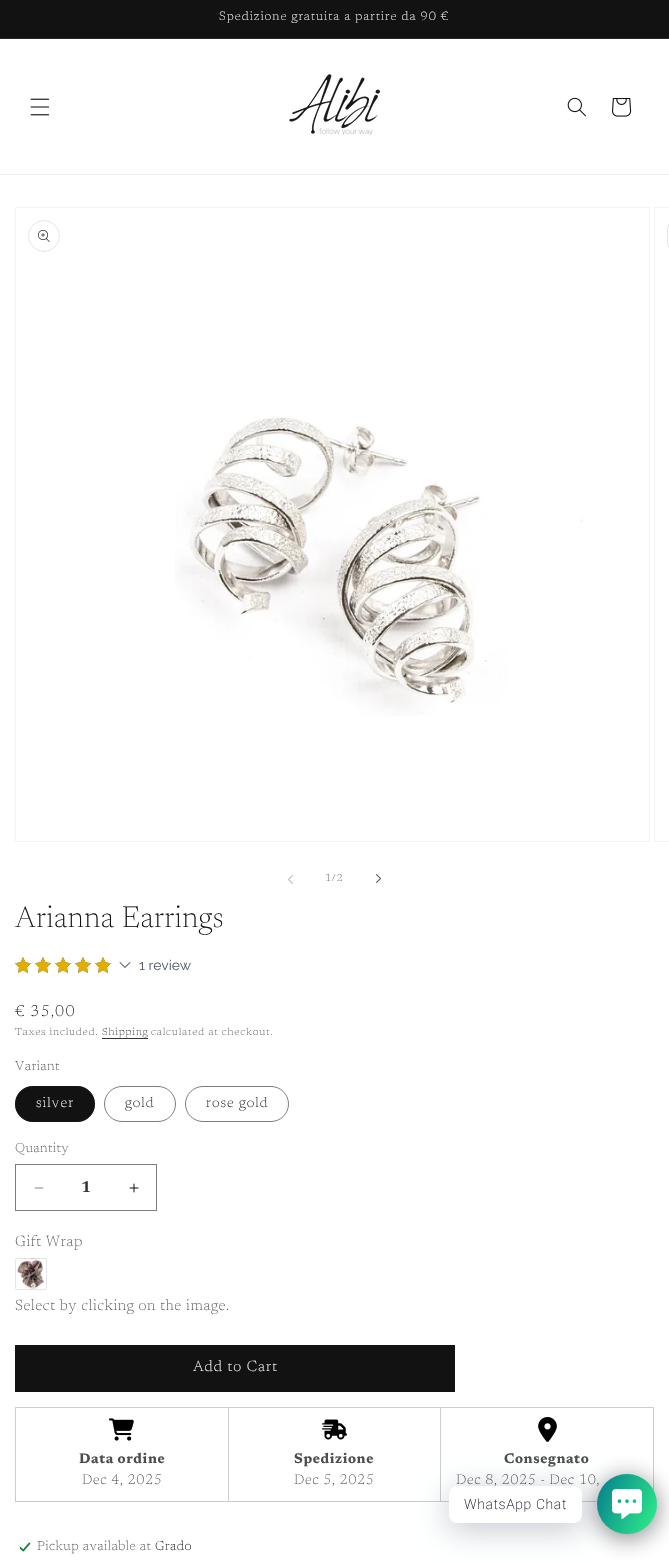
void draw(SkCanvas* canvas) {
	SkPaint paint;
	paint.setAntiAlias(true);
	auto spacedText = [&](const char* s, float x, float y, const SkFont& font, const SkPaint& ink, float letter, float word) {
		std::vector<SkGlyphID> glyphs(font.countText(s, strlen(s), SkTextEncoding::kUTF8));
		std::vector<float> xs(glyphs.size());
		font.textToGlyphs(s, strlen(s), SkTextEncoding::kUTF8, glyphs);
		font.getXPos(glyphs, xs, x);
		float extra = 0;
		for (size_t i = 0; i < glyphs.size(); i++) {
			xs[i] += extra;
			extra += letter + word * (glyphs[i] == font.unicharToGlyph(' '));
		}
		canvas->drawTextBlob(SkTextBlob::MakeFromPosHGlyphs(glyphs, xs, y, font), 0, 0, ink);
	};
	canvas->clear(0xffffffff);
	paint.setColor(0xff121212);
	canvas->drawRect(SkRect::MakeXYWH(0, 0, 669, 38), paint);
	paint.setColor(0xff252525);
	canvas->drawRect(SkRect::MakeXYWH(0, 38, 669, 1), paint);
	SkFont f1(fontMgr->matchFamilyStyle("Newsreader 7", SkFontStyle(200, SkFontStyle::kNormal_Width, SkFontStyle::kUpright_Slant)), 12);
	f1.setSubpixel(true);
	paint.setColor(0xffffffff);
	spacedText("Spedizione gratuita a partire da 90 €", 219, 20, f1, paint, 1, 0);
	paint.setColor(0xffececec);
	canvas->drawRect(SkRect::MakeXYWH(0, 174, 669, 1), paint);
	canvas->drawImageRect(SkImages::DeferredFromEncodedData(SkData::MakeFromFileName("img1.png")), SkRect::MakeXYWH(30, 98, 20, 18), SkSamplingOptions());
	canvas->drawImageRect(SkImages::DeferredFromEncodedData(SkData::MakeFromFileName("img2.png")), SkRect::MakeXYWH(289, 74, 92, 61), SkSamplingOptions());
	canvas->drawImageRect(SkImages::DeferredFromEncodedData(SkData::MakeFromFileName("img3.png")), SkRect::MakeXYWH(567, 97, 19, 20), SkSamplingOptions());
	canvas->drawImageRect(SkImages::DeferredFromEncodedData(SkData::MakeFromFileName("img4.png")), SkRect::MakeXYWH(612, 98, 20, 19), SkSamplingOptions());
	paint.setStroke(true);
	paint.setStrokeWidth(1);
	paint.setColor(0xfff3f3f3);
	canvas->drawRect(SkRect::MakeXYWH(15.5, 207.5, 634, 634), paint);
	paint.setColor(0xffe7e7e7);
	canvas->drawCircle(44, 236, 15.5, paint);
	canvas->drawImageRect(SkImages::DeferredFromEncodedData(SkData::MakeFromFileName("img5.png")), SkRect::MakeXYWH(38, 230, 12, 12), SkSamplingOptions());
	canvas->drawImageRect(SkImages::DeferredFromEncodedData(SkData::MakeFromFileName("img6.png")), SkRect::MakeXYWH(175, 417, 439, 299), SkSamplingOptions());
	paint.setColor(0xfff3f3f3);
	canvas->drawRect(SkRect::MakeXYWH(654.5, 207.5, 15, 634), paint);
	paint.setColor(0xffe7e7e7);
	canvas->drawRoundRect(SkRect::MakeXYWH(667.5, 220.5, 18, 31), 15.5, 15.5, paint);
	canvas->drawImageRect(SkImages::DeferredFromEncodedData(SkData::MakeFromFileName("img7.png")), SkRect::MakeXYWH(288, 875, 5, 9), SkSamplingOptions());
	SkFont f2(fontMgr->matchFamilyStyle("Newsreader", SkFontStyle(200, SkFontStyle::kNormal_Width, SkFontStyle::kUpright_Slant)), 10);
	f2.setSubpixel(true);
	paint.setStroke(false);
	paint.setColor(0xff4d4d4d);
	spacedText("1/2", 325, 881, f2, paint, 0.7, 0);
	canvas->drawImageRect(SkImages::DeferredFromEncodedData(SkData::MakeFromFileName("img8.png")), SkRect::MakeXYWH(376, 874, 5, 9), SkSamplingOptions());
	SkFont f3(fontMgr->matchFamilyStyle("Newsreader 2", SkFontStyle(200, SkFontStyle::kNormal_Width, SkFontStyle::kUpright_Slant)), 30);
	f3.setSubpixel(true);
	paint.setColor(0xff121212);
	spacedText("Arianna Earrings", 15, 927, f3, paint, 0.6, 0);
	canvas->drawImageRect(SkImages::DeferredFromEncodedData(SkData::MakeFromFileName("img9.png")), SkRect::MakeXYWH(15, 957, 176, 16), SkSamplingOptions());
	SkFont f4(fontMgr->matchFamilyStyle("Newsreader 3", SkFontStyle(200, SkFontStyle::kNormal_Width, SkFontStyle::kUpright_Slant)), 16);
	f4.setSubpixel(true);
	spacedText("€ 35,00", 15, 1016, f4, paint, 1.25, 0);
	paint.setColor(0xff4d4d4d);
	spacedText("Taxes included.", 15, 1035, f2, paint, 0.7, 0);
	paint.setColor(0xff363636);
	spacedText("Shipping", 102, 1035, f2, paint, 0.7, 0);
	canvas->drawRect(SkRect::MakeXYWH(102, 1038, 46, 1), paint);
	paint.setColor(0xff4d4d4d);
	spacedText("calculated at checkout.", 151, 1035, f2, paint, 0.7, 0);
	SkFont f5(fontMgr->matchFamilyStyle("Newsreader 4", SkFontStyle(200, SkFontStyle::kNormal_Width, SkFontStyle::kUpright_Slant)), 13);
	f5.setSubpixel(true);
	spacedText("Variant", 15, 1070, f5, paint, 0.4, 0);
	paint.setColor(0xff121212);
	canvas->drawRoundRect(SkRect::MakeXYWH(15, 1086, 80, 36), 18, 18, paint);
	paint.setStroke(true);
	paint.setColor(0x8c121212);
	canvas->drawRoundRect(SkRect::MakeXYWH(15.5, 1086.5, 79, 35), 17.5, 17.5, paint);
	SkFont f6(fontMgr->matchFamilyStyle("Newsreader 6", SkFontStyle(200, SkFontStyle::kNormal_Width, SkFontStyle::kUpright_Slant)), 14);
	f6.setSubpixel(true);
	paint.setStroke(false);
	paint.setColor(0xffffffff);
	spacedText("silver", 36, 1107, f6, paint, 1, 0);
	paint.setStroke(true);
	paint.setColor(0xff7d7d7d);
	canvas->drawRoundRect(SkRect::MakeXYWH(104.5, 1086.5, 71, 35), 17.5, 17.5, paint);
	paint.setStroke(false);
	paint.setColor(0xff121212);
	spacedText("gold", 125, 1107, f6, paint, 1, 0);
	paint.setStroke(true);
	paint.setColor(0xff7d7d7d);
	canvas->drawRoundRect(SkRect::MakeXYWH(185.5, 1086.5, 103, 35), 17.5, 17.5, paint);
	paint.setStroke(false);
	paint.setColor(0xff121212);
	spacedText("rose gold", 206, 1107, f6, paint, 1, 0);
	paint.setColor(0xff4d4d4d);
	spacedText("Quantity", 15, 1152, f5, paint, 0.4, 0);
	canvas->drawImageRect(SkImages::DeferredFromEncodedData(SkData::MakeFromFileName("img10.png")), SkRect::MakeXYWH(34, 1187, 10, 2), SkSamplingOptions());
	canvas->drawImageRect(SkImages::DeferredFromEncodedData(SkData::MakeFromFileName("img11.png")), SkRect::MakeXYWH(129, 1183, 10, 10), SkSamplingOptions());
	paint.setStroke(true);
	paint.setColor(0xff7d7d7d);
	canvas->drawRect(SkRect::MakeXYWH(15.5, 1164.5, 141, 46), paint);
	SkFont f7(fontMgr->matchFamilyStyle("Newsreader", SkFontStyle::Bold()), 16);
	f7.setSubpixel(true);
	paint.setStroke(false);
	paint.setColor(0xff363636);
	canvas->drawString("1", 81, 1192, f7, paint);
	SkFont f8(fontMgr->matchFamilyStyle("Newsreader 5", SkFontStyle(200, SkFontStyle::kNormal_Width, SkFontStyle::kUpright_Slant)), 15);
	f8.setSubpixel(true);
	paint.setColor(0xff4d4d4d);
	spacedText("Gift Wrap", 15, 1246, f8, paint, 0.6, 0);
	canvas->drawImageRect(SkImages::DeferredFromEncodedData(SkData::MakeFromFileName("img12.png")), SkRect::MakeXYWH(17, 1258, 27, 32), SkSamplingOptions());
	paint.setStroke(true);
	paint.setColor(0x1a000000);
	canvas->drawRoundRect(SkRect::MakeXYWH(15.5, 1258.5, 31, 31), 1.5, 1.5, paint);
	paint.setStroke(false);
	paint.setColor(0xff4d4d4d);
	spacedText("Select by clicking on the image.", 15, 1310, f8, paint, 0.6, 0);
	paint.setColor(0xff121212);
	canvas->drawRect(SkRect::MakeXYWH(15, 1345, 440, 47), paint);
	paint.setColor(0xffffffff);
	spacedText("Add to Cart", 193, 1371, f8, paint, 1, 0);
	paint.setColor(0xffcdcdcd);
	canvas->drawRect(SkRect::MakeXYWH(15, 1407, 639, 1), paint);
	canvas->drawRect(SkRect::MakeXYWH(653, 1407, 1, 84), paint);
	canvas->drawRect(SkRect::MakeXYWH(15, 1501, 583, 1), paint);
	canvas->drawRect(SkRect::MakeXYWH(15, 1407, 1, 95), paint);
	canvas->drawImageRect(SkImages::DeferredFromEncodedData(SkData::MakeFromFileName("img13.png")), SkRect::MakeXYWH(109, 1418, 25, 23), SkSamplingOptions());
	SkFont f9(fontMgr->matchFamilyStyle("Newsreader 2", SkFontStyle::Bold()), 14);
	f9.setSubpixel(true);
	paint.setColor(0xff4d4d4d);
	spacedText("Data ordine", 79, 1463, f9, paint, 0.6, 0);
	spacedText("Dec 4, 2025", 82, 1484, f6, paint, 0.6, 0);
	paint.setColor(0xffcdcdcd);
	canvas->drawRect(SkRect::MakeXYWH(228, 1407, 1, 95), paint);
	canvas->drawImageRect(SkImages::DeferredFromEncodedData(SkData::MakeFromFileName("img14.png")), SkRect::MakeXYWH(322, 1419, 25, 21), SkSamplingOptions());
	paint.setColor(0xff4d4d4d);
	spacedText("Spedizione", 294, 1463, f9, paint, 0.6, 0);
	spacedText("Dec 5, 2025", 294, 1484, f6, paint, 0.6, 0);
	paint.setColor(0xffcdcdcd);
	canvas->drawRect(SkRect::MakeXYWH(440, 1407, 1, 95), paint);
	canvas->drawImageRect(SkImages::DeferredFromEncodedData(SkData::MakeFromFileName("img15.png")), SkRect::MakeXYWH(538, 1417, 19, 25), SkSamplingOptions());
	paint.setColor(0xff4d4d4d);
	spacedText("Consegnato", 504, 1463, f9, paint, 0.6, 0);
	spacedText("Dec 8, 2025 - Dec 10,", 456, 1484, f6, paint, 0.6, 0);
	canvas->drawImageRect(SkImages::DeferredFromEncodedData(SkData::MakeFromFileName("img16.png")), SkRect::MakeXYWH(19, 1542, 12, 10), SkSamplingOptions());
	spacedText("Pickup available at", 37, 1550, f5, paint, 0.4, 0);
	paint.setColor(0xff121212);
	spacedText("Grado", 155, 1550, f5, paint, 0.4, 0);
	paint.setColor(0x80020610);
	paint.setMaskFilter(SkMaskFilter::MakeBlur(kNormal_SkBlurStyle, 12));
	canvas->drawRoundRect(SkRect::MakeXYWH(597, 1478, 60, 60), 30, 30, paint);
	paint.setMaskFilter(nullptr);
	{
		const SkColor colors[] = {0xff047c8d, 0xff2ff289};
		const float stops[] = {0, 1};
		const SkPoint ends[] = {{591, 1487}, {663, 1521}};
		paint.setShader(SkGradientShader::MakeLinear(ends, colors, stops, 2, SkTileMode::kClamp));
		paint.setAlpha(255);
	}
	canvas->drawCircle(627, 1504, 30, paint);
	paint.setShader(nullptr);
	paint.setColor(0x3d00122e);
	paint.setMaskFilter(SkMaskFilter::MakeBlur(kNormal_SkBlurStyle, 16));
	canvas->drawRoundRect(SkRect::MakeXYWH(449, 1492, 133, 37), 8, 8, paint);
	paint.setMaskFilter(nullptr);
	paint.setColor(0xffffffff);
	canvas->drawRoundRect(SkRect::MakeXYWH(449, 1486, 133, 37), 8, 8, paint);
	SkFont f10(fontMgr->matchFamilyStyle("Roboto", SkFontStyle(200, SkFontStyle::kNormal_Width, SkFontStyle::kUpright_Slant)), 14);
	f10.setSubpixel(true);
	paint.setColor(0xff1e2433);
	spacedText("WhatsApp Chat", 464, 1509, f10, paint, 0.6, 0);
	canvas->drawImageRect(SkImages::DeferredFromEncodedData(SkData::MakeFromFileName("img17.png")), SkRect::MakeXYWH(612, 1489, 30, 30), SkSamplingOptions());
}
